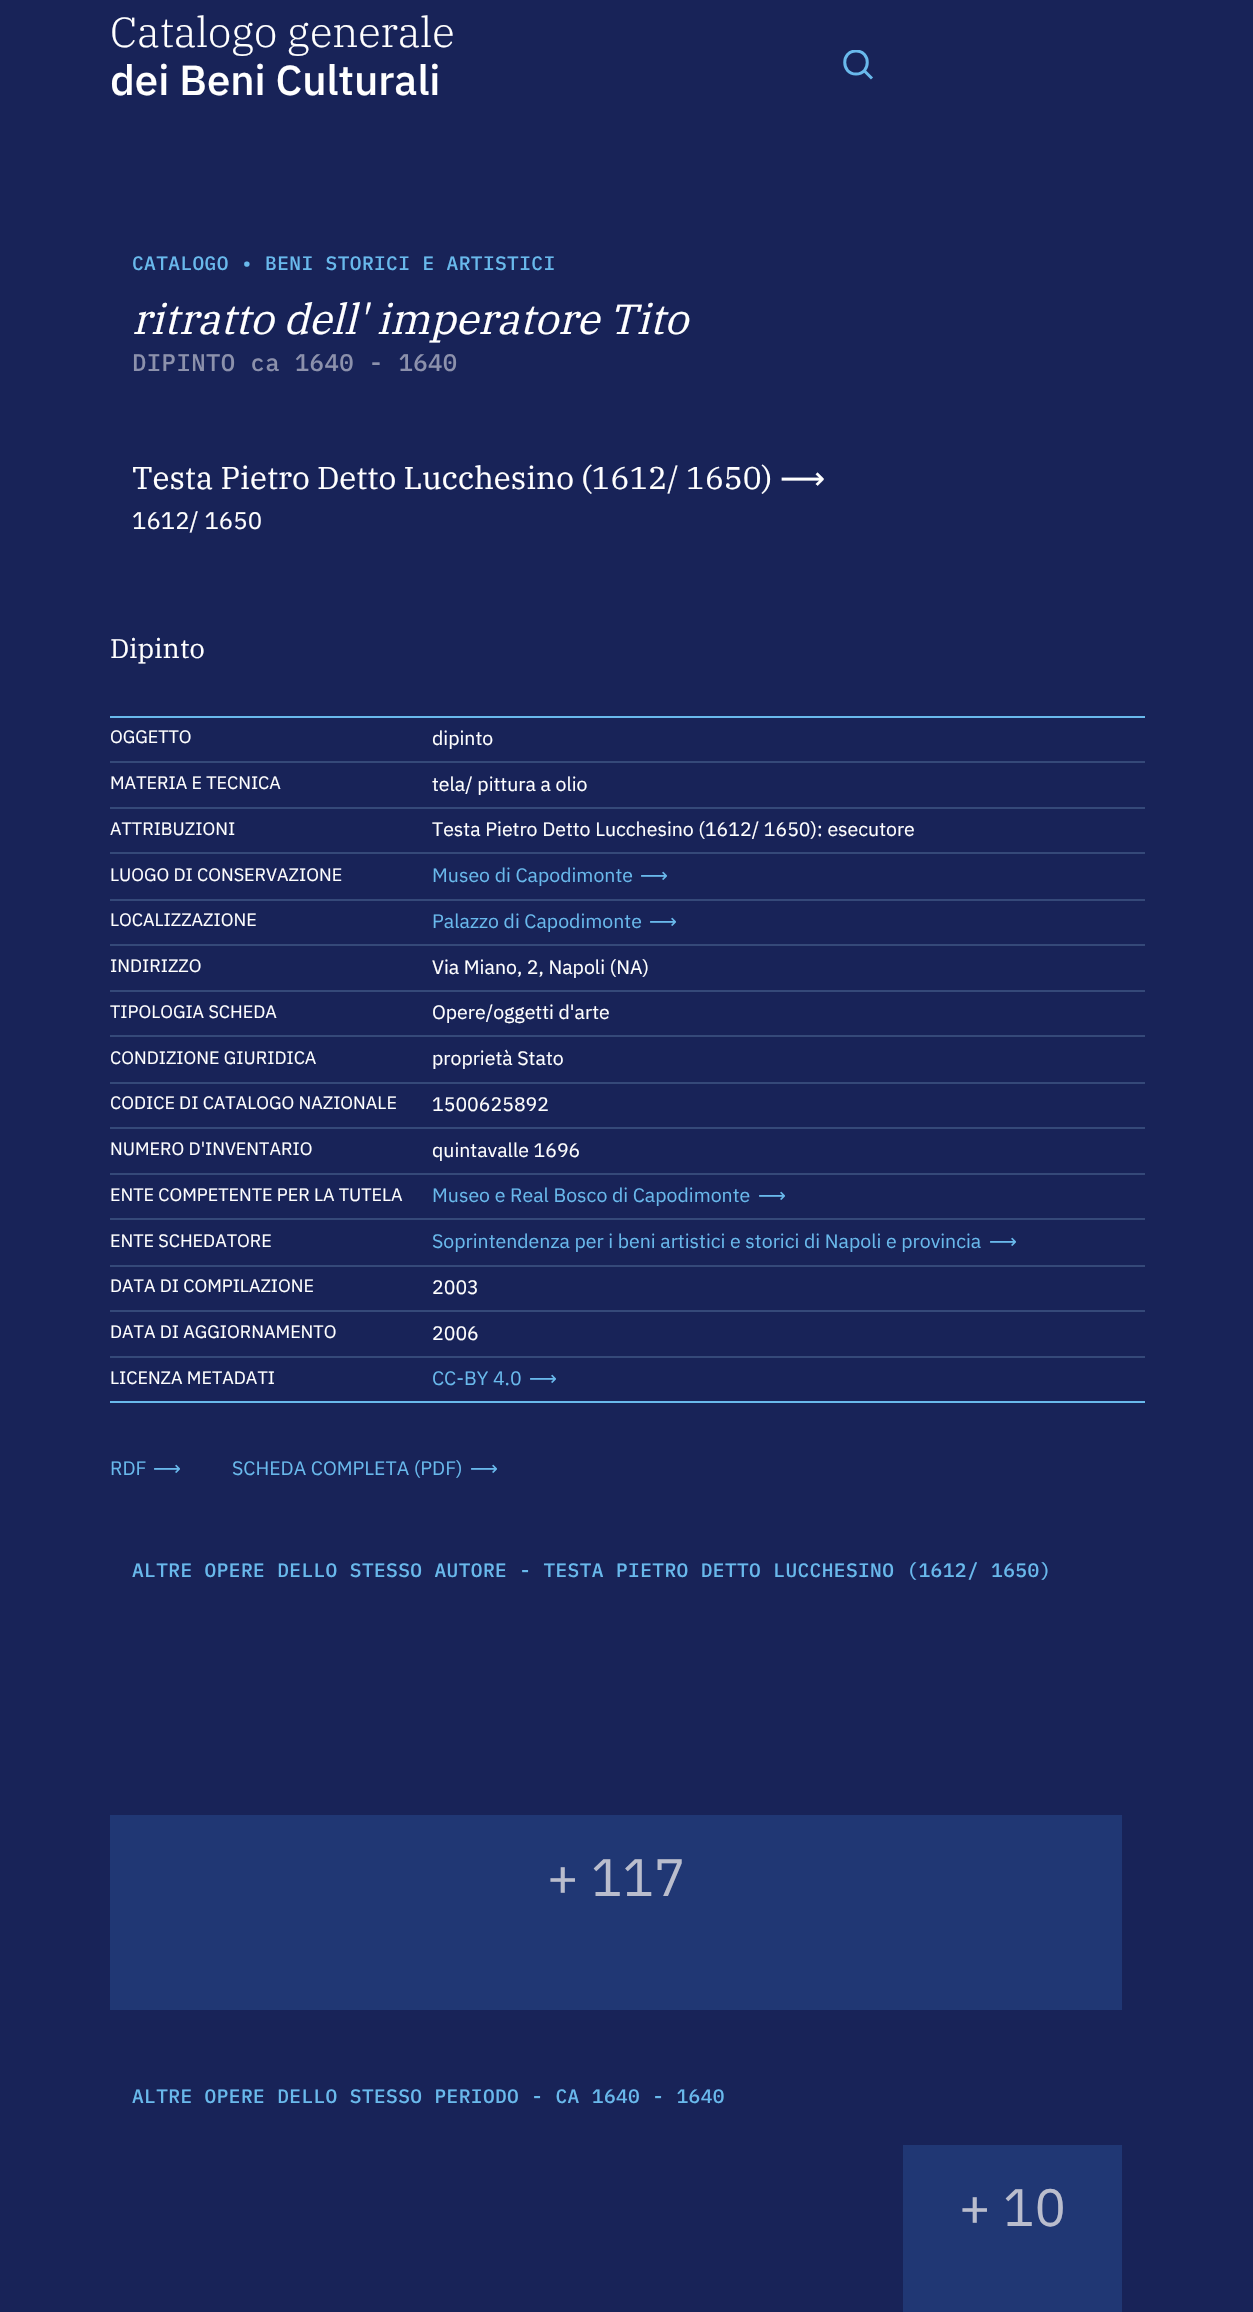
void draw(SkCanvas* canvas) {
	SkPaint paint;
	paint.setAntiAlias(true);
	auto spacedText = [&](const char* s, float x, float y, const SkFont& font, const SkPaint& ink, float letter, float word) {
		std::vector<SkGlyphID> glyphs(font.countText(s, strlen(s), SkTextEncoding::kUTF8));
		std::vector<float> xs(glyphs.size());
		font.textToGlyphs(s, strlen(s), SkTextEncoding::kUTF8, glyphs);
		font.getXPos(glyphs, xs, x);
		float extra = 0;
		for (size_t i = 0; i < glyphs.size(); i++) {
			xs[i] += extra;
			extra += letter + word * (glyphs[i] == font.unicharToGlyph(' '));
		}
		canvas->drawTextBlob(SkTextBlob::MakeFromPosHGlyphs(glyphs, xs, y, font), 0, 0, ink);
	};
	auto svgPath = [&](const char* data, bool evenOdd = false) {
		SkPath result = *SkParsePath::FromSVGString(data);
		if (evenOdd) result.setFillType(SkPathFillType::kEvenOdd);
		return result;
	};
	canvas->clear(0xff182358);
	SkFont f1(fontMgr->matchFamilyStyle("IBM Plex Serif", SkFontStyle(300, SkFontStyle::kNormal_Width, SkFontStyle::kUpright_Slant)), 42);
	f1.setSubpixel(true);
	paint.setColor(0xffffffff);
	canvas->drawString("Catalogo generale", 110, 47, f1, paint);
	SkFont f2(fontMgr->matchFamilyStyle("IBM Plex Sans", SkFontStyle(500, SkFontStyle::kNormal_Width, SkFontStyle::kUpright_Slant)), 42);
	f2.setSubpixel(true);
	canvas->drawString("dei Beni Culturali", 110, 95, f2, paint);
	canvas->save();
	canvas->clipRect(SkRect::MakeXYWH(843, 50, 30, 30));
	paint.setStroke(true);
	paint.setStrokeWidth(3);
	paint.setColor(0xff69b9ec);
	canvas->drawPath(svgPath("M856 74C871 74 871 51 856 51C841 51 841 74 856 74Z"), paint);
	canvas->restore();
	canvas->drawPath(svgPath("M864.5 71L872 78.5"), paint);
	SkFont f3(fontMgr->matchFamilyStyle("IBM Plex Mono", SkFontStyle(500, SkFontStyle::kNormal_Width, SkFontStyle::kUpright_Slant)), 19.5);
	f3.setSubpixel(true);
	paint.setStroke(false);
	spacedText("CATALOGO • BENI STORICI E ARTISTICI", 132, 270, f3, paint, 0.4, 0);
	SkFont f4(fontMgr->matchFamilyStyle("IBM Plex Serif", SkFontStyle::Italic()), 42);
	f4.setSubpixel(true);
	paint.setColor(0xffffffff);
	canvas->drawString("ritratto dell' imperatore Tito", 132, 334, f4, paint);
	SkFont f5(fontMgr->matchFamilyStyle("IBM Plex Mono", SkFontStyle(500, SkFontStyle::kNormal_Width, SkFontStyle::kUpright_Slant)), 24);
	f5.setSubpixel(true);
	paint.setColor(0xff8c91ac);
	spacedText("DIPINTO ca 1640 - 1640", 132, 371, f5, paint, 0.4, 0);
	SkFont f6(fontMgr->matchFamilyStyle("IBM Plex Serif", SkFontStyle::Normal()), 31.5);
	f6.setSubpixel(true);
	paint.setColor(0xffffffff);
	canvas->drawString("Testa Pietro Detto Lucchesino (1612/ 1650)", 132, 489, f6, paint);
	SkFont f7(fontMgr->matchFamilyStyle("DejaVu Sans", SkFontStyle::Normal()), 31.5);
	f7.setSubpixel(true);
	canvas->drawString("⟶", 780, 489, f7, paint);
	SkFont f8(fontMgr->matchFamilyStyle("IBM Plex Sans", SkFontStyle::Normal()), 24);
	f8.setSubpixel(true);
	canvas->drawString("1612/ 1650", 132, 529, f8, paint);
	SkFont f9(fontMgr->matchFamilyStyle("IBM Plex Serif", SkFontStyle::Normal()), 27);
	f9.setSubpixel(true);
	canvas->drawString("Dipinto", 110, 658, f9, paint);
	paint.setColor(0xff69b9ec);
	canvas->drawRect(SkRect::MakeXYWH(110, 716, 1035, 2), paint);
	canvas->drawRect(SkRect::MakeXYWH(110, 1401, 1035, 2), paint);
	paint.setColor(0xff354979);
	canvas->drawRect(SkRect::MakeXYWH(110, 761, 1035, 2), paint);
	SkFont f10(fontMgr->matchFamilyStyle("IBM Plex Sans", SkFontStyle::Normal()), 18);
	f10.setSubpixel(true);
	paint.setColor(0xffffffff);
	canvas->drawString("OGGETTO", 110, 743, f10, paint);
	SkFont f11(fontMgr->matchFamilyStyle("IBM Plex Sans", SkFontStyle::Normal()), 19.5);
	f11.setSubpixel(true);
	canvas->drawString("dipinto", 432, 745, f11, paint);
	paint.setColor(0xff354979);
	canvas->drawRect(SkRect::MakeXYWH(110, 807, 1035, 2), paint);
	paint.setColor(0xffffffff);
	canvas->drawString("MATERIA E TECNICA", 110, 789, f10, paint);
	canvas->drawString("tela/ pittura a olio", 432, 791, f11, paint);
	paint.setColor(0xff354979);
	canvas->drawRect(SkRect::MakeXYWH(110, 852, 1035, 2), paint);
	paint.setColor(0xffffffff);
	canvas->drawString("ATTRIBUZIONI", 110, 835, f10, paint);
	canvas->drawString("Testa Pietro Detto Lucchesino (1612/ 1650): esecutore", 432, 836, f11, paint);
	paint.setColor(0xff354979);
	canvas->drawRect(SkRect::MakeXYWH(110, 899, 1035, 2), paint);
	paint.setColor(0xffffffff);
	canvas->drawString("LUOGO DI CONSERVAZIONE", 110, 881, f10, paint);
	paint.setColor(0xff69b9ec);
	canvas->drawString("Museo di Capodimonte", 432, 882, f11, paint);
	SkFont f12(fontMgr->matchFamilyStyle("DejaVu Sans", SkFontStyle::Normal()), 19.5);
	f12.setSubpixel(true);
	canvas->drawString("⟶", 640, 882, f12, paint);
	paint.setColor(0xff354979);
	canvas->drawRect(SkRect::MakeXYWH(110, 944, 1035, 2), paint);
	paint.setColor(0xffffffff);
	canvas->drawString("LOCALIZZAZIONE", 110, 926, f10, paint);
	paint.setColor(0xff69b9ec);
	canvas->drawString("Palazzo di Capodimonte", 432, 928, f11, paint);
	canvas->drawString("⟶", 649, 928, f12, paint);
	paint.setColor(0xff354979);
	canvas->drawRect(SkRect::MakeXYWH(110, 990, 1035, 2), paint);
	paint.setColor(0xffffffff);
	canvas->drawString("INDIRIZZO", 110, 972, f10, paint);
	canvas->drawString("Via Miano, 2, Napoli (NA)", 432, 974, f11, paint);
	paint.setColor(0xff354979);
	canvas->drawRect(SkRect::MakeXYWH(110, 1035, 1035, 2), paint);
	paint.setColor(0xffffffff);
	canvas->drawString("TIPOLOGIA SCHEDA", 110, 1018, f10, paint);
	canvas->drawString("Opere/oggetti d'arte", 432, 1019, f11, paint);
	paint.setColor(0xff354979);
	canvas->drawRect(SkRect::MakeXYWH(110, 1082, 1035, 2), paint);
	paint.setColor(0xffffffff);
	canvas->drawString("CONDIZIONE GIURIDICA", 110, 1064, f10, paint);
	canvas->drawString("proprietà Stato", 432, 1065, f11, paint);
	paint.setColor(0xff354979);
	canvas->drawRect(SkRect::MakeXYWH(110, 1127, 1035, 2), paint);
	paint.setColor(0xffffffff);
	canvas->drawString("CODICE DI CATALOGO NAZIONALE", 110, 1109, f10, paint);
	canvas->drawString("1500625892", 432, 1111, f11, paint);
	paint.setColor(0xff354979);
	canvas->drawRect(SkRect::MakeXYWH(110, 1173, 1035, 2), paint);
	paint.setColor(0xffffffff);
	canvas->drawString("NUMERO D'INVENTARIO", 110, 1155, f10, paint);
	canvas->drawString("quintavalle 1696", 432, 1157, f11, paint);
	paint.setColor(0xff354979);
	canvas->drawRect(SkRect::MakeXYWH(110, 1218, 1035, 2), paint);
	paint.setColor(0xffffffff);
	canvas->drawString("ENTE COMPETENTE PER LA TUTELA", 110, 1201, f10, paint);
	paint.setColor(0xff69b9ec);
	canvas->drawString("Museo e Real Bosco di Capodimonte", 432, 1202, f11, paint);
	canvas->drawString("⟶", 758, 1202, f12, paint);
	paint.setColor(0xff354979);
	canvas->drawRect(SkRect::MakeXYWH(110, 1265, 1035, 2), paint);
	paint.setColor(0xffffffff);
	canvas->drawString("ENTE SCHEDATORE", 110, 1247, f10, paint);
	paint.setColor(0xff69b9ec);
	canvas->drawString("Soprintendenza per i beni artistici e storici di Napoli e provincia", 432, 1248, f11, paint);
	canvas->drawString("⟶", 989, 1248, f12, paint);
	paint.setColor(0xff354979);
	canvas->drawRect(SkRect::MakeXYWH(110, 1310, 1035, 2), paint);
	paint.setColor(0xffffffff);
	canvas->drawString("DATA DI COMPILAZIONE", 110, 1292, f10, paint);
	canvas->drawString("2003", 432, 1294, f11, paint);
	paint.setColor(0xff354979);
	canvas->drawRect(SkRect::MakeXYWH(110, 1356, 1035, 2), paint);
	paint.setColor(0xffffffff);
	canvas->drawString("DATA DI AGGIORNAMENTO", 110, 1338, f10, paint);
	canvas->drawString("2006", 432, 1340, f11, paint);
	canvas->drawString("LICENZA METADATI", 110, 1384, f10, paint);
	paint.setColor(0xff69b9ec);
	canvas->drawString("CC-BY 4.0", 432, 1385, f11, paint);
	canvas->drawString("⟶", 529, 1385, f12, paint);
	canvas->drawString("RDF", 110, 1475, f11, paint);
	canvas->drawString("⟶", 153, 1475, f12, paint);
	canvas->drawString("SCHEDA COMPLETA (PDF)", 232, 1475, f11, paint);
	canvas->drawString("⟶", 470, 1475, f12, paint);
	spacedText("ALTRE OPERE DELLO STESSO AUTORE - TESTA PIETRO DETTO LUCCHESINO (1612/ 1650)", 132, 1577, f3, paint, 0.4, 0);
	paint.setColor(0xff203774);
	canvas->drawRect(SkRect::MakeXYWH(110, 1815, 1012, 195), paint);
	SkFont f13(fontMgr->matchFamilyStyle("IBM Plex Sans", SkFontStyle::Normal()), 52.5);
	f13.setSubpixel(true);
	paint.setColor(0xffbabdcd);
	canvas->drawString("+ 117", 547, 1896, f13, paint);
	paint.setColor(0xff69b9ec);
	spacedText("ALTRE OPERE DELLO STESSO PERIODO - CA 1640 - 1640", 132, 2103, f3, paint, 0.4, 0);
	paint.setColor(0xff203774);
	canvas->drawRect(SkRect::MakeXYWH(903, 2145, 219, 167), paint);
	paint.setColor(0xffbabdcd);
	canvas->drawString("+ 10", 959, 2226, f13, paint);
}
